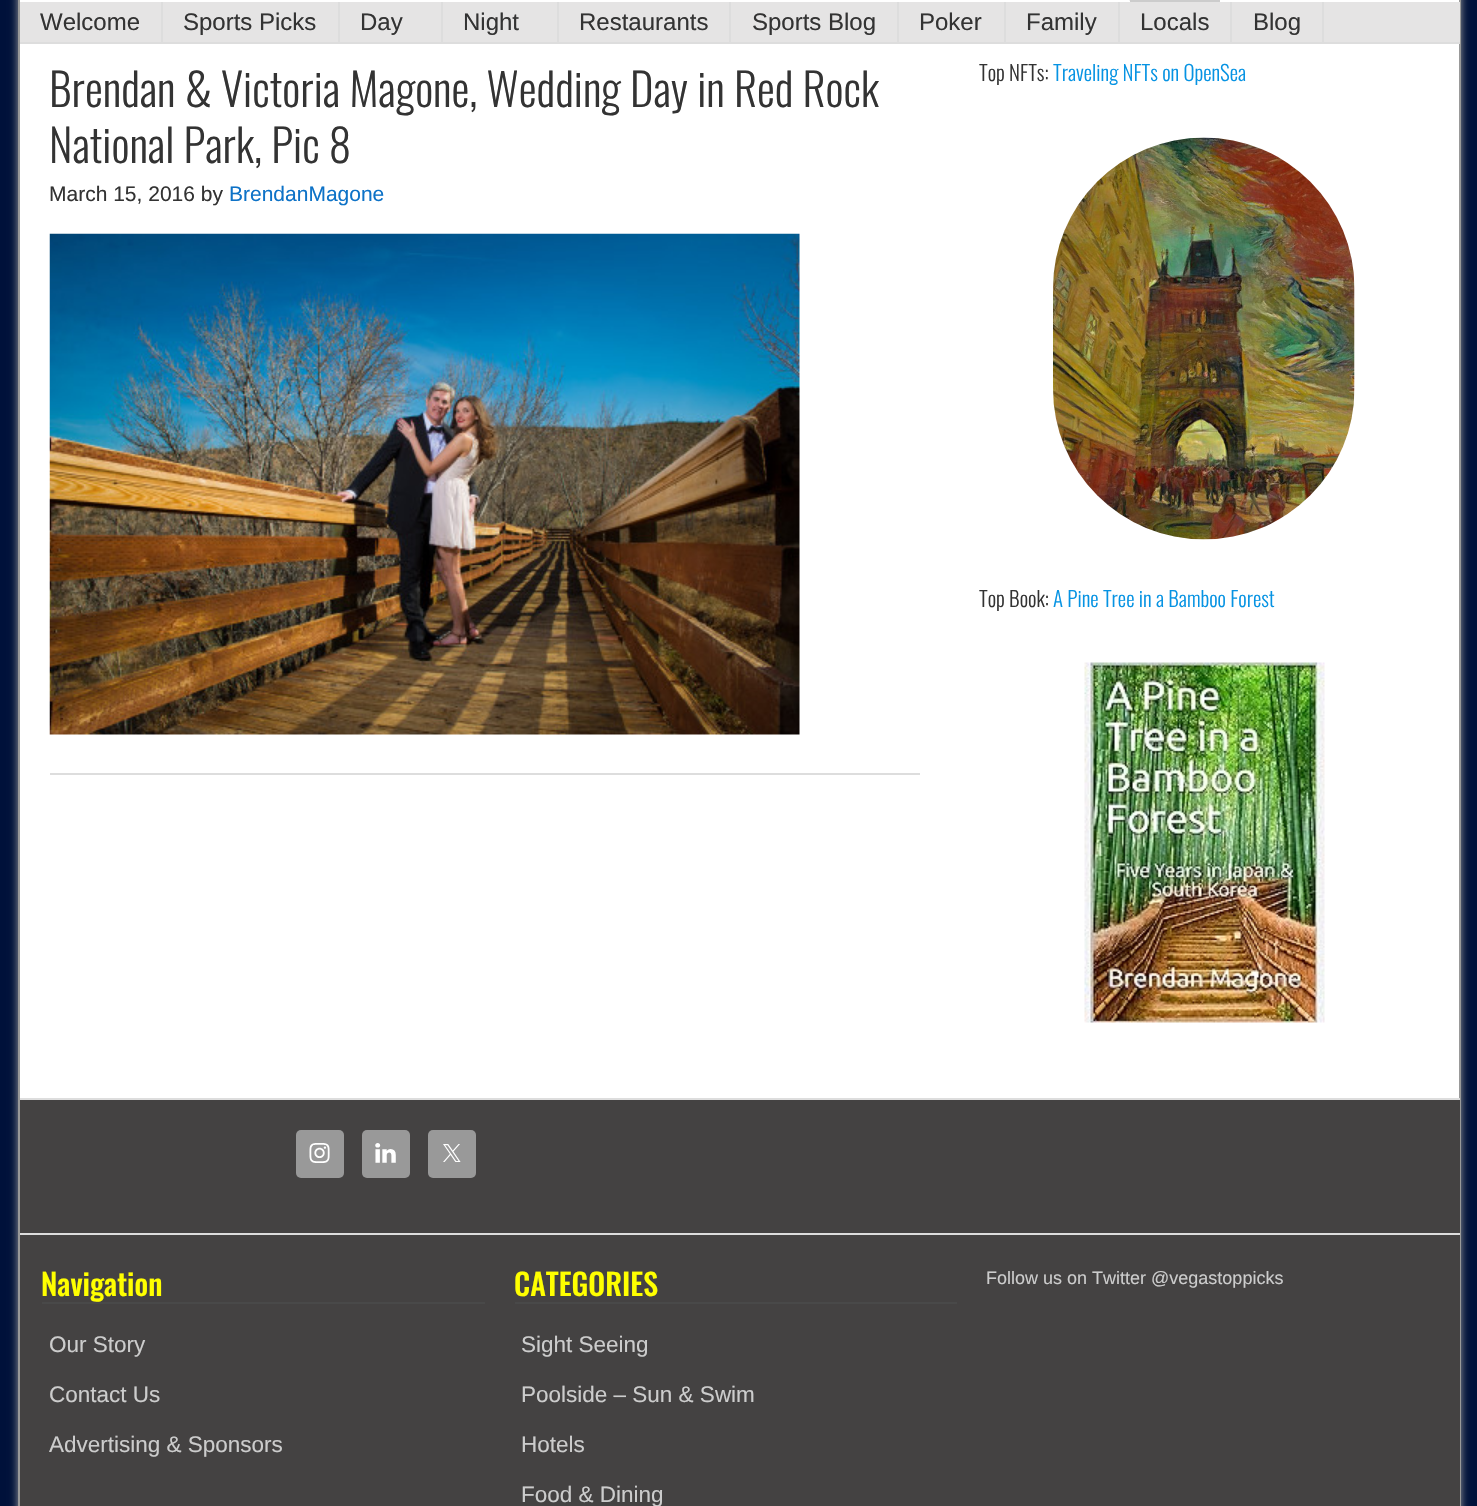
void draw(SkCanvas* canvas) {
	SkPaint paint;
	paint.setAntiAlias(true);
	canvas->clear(0xff00113a);
	paint.setColor(0xff999999);
	paint.setMaskFilter(SkMaskFilter::MakeBlur(kNormal_SkBlurStyle, 4));
	canvas->drawRect(SkRect::MakeXYWH(18, -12, 1443, 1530), paint);
	paint.setMaskFilter(nullptr);
	paint.setColor(0xffffffff);
	canvas->drawRect(SkRect::MakeXYWH(20, 0, 1439, 1098), paint);
	paint.setStroke(true);
	paint.setStrokeWidth(2);
	paint.setColor(0xff999999);
	canvas->drawRect(SkRect::MakeXYWH(19, -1, 1441, 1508), paint);
	canvas->drawImageRect(SkImages::DeferredFromEncodedData(SkData::MakeFromFileName("img1.png")), SkRect::MakeXYWH(1129, 0, 1, 1), SkSamplingOptions());
	paint.setColor(0xffcccccc);
	canvas->drawRect(SkRect::MakeXYWH(1131, -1, 88, 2), paint);
	paint.setStroke(false);
	paint.setColor(0xffe5e4e4);
	canvas->drawRect(SkRect::MakeXYWH(20, 2, 1440, 40), paint);
	paint.setColor(0xffdddddd);
	canvas->drawRect(SkRect::MakeXYWH(20, 42, 1440, 2), paint);
	canvas->drawRect(SkRect::MakeXYWH(161, 2, 2, 40), paint);
	SkFont f1(fontMgr->matchFamilyStyle("Liberation Sans", SkFontStyle::Normal()), 24);
	f1.setSubpixel(true);
	paint.setColor(0xff333333);
	canvas->drawString("Welcome", 40, 30, f1, paint);
	paint.setColor(0xffdddddd);
	canvas->drawRect(SkRect::MakeXYWH(338, 2, 2, 40), paint);
	paint.setColor(0xff333333);
	canvas->drawString("Sports Picks", 183, 30, f1, paint);
	paint.setColor(0xffdddddd);
	canvas->drawRect(SkRect::MakeXYWH(441, 2, 2, 40), paint);
	paint.setColor(0xff333333);
	canvas->drawString("Day", 360, 30, f1, paint);
	paint.setColor(0xffdddddd);
	canvas->drawRect(SkRect::MakeXYWH(557, 2, 2, 40), paint);
	paint.setColor(0xff333333);
	canvas->drawString("Night", 463, 30, f1, paint);
	paint.setColor(0xffdddddd);
	canvas->drawRect(SkRect::MakeXYWH(729, 2, 2, 40), paint);
	paint.setColor(0xff333333);
	canvas->drawString("Restaurants", 579, 30, f1, paint);
	paint.setColor(0xffdddddd);
	canvas->drawRect(SkRect::MakeXYWH(897, 2, 2, 40), paint);
	paint.setColor(0xff333333);
	canvas->drawString("Sports Blog", 752, 30, f1, paint);
	paint.setColor(0xffdddddd);
	canvas->drawRect(SkRect::MakeXYWH(1004, 2, 2, 40), paint);
	paint.setColor(0xff333333);
	canvas->drawString("Poker", 919, 30, f1, paint);
	paint.setColor(0xffdddddd);
	canvas->drawRect(SkRect::MakeXYWH(1118, 2, 2, 40), paint);
	paint.setColor(0xff333333);
	canvas->drawString("Family", 1026, 30, f1, paint);
	paint.setColor(0xffdddddd);
	canvas->drawRect(SkRect::MakeXYWH(1230, 2, 2, 40), paint);
	paint.setColor(0xff333333);
	canvas->drawString("Locals", 1140, 30, f1, paint);
	paint.setColor(0xffdddddd);
	canvas->drawRect(SkRect::MakeXYWH(1322, 2, 2, 40), paint);
	paint.setColor(0xff333333);
	canvas->drawString("Blog", 1253, 30, f1, paint);
	SkFont f2(fontMgr->matchFamilyStyle("Oswald", SkFontStyle(300, SkFontStyle::kNormal_Width, SkFontStyle::kUpright_Slant)), 45);
	f2.setSubpixel(true);
	canvas->drawString("Brendan & Victoria Magone, Wedding Day in Red Rock", 49, 107, f2, paint);
	canvas->drawString("National Park, Pic 8", 49, 163, f2, paint);
	SkFont f3(fontMgr->matchFamilyStyle("Liberation Sans", SkFontStyle::Normal()), 21);
	f3.setSubpixel(true);
	canvas->drawString("March 15, 2016 by", 49, 201, f3, paint);
	paint.setColor(0xff0d72c7);
	canvas->drawString("BrendanMagone", 229, 201, f3, paint);
	canvas->drawImageRect(SkImages::DeferredFromEncodedData(SkData::MakeFromFileName("img2.png")), SkRect::MakeXYWH(49, 233, 751, 502), SkSamplingOptions());
	paint.setColor(0xffdddddd);
	canvas->drawRect(SkRect::MakeXYWH(50, 773, 870, 2), paint);
	SkFont f4(fontMgr->matchFamilyStyle("Oswald", SkFontStyle(300, SkFontStyle::kNormal_Width, SkFontStyle::kUpright_Slant)), 21);
	f4.setSubpixel(true);
	paint.setColor(0xff333333);
	canvas->drawString("Top NFTs:", 979, 81, f4, paint);
	paint.setColor(0xff0693e3);
	canvas->drawString("Traveling NFTs on OpenSea", 1053, 81, f4, paint);
	canvas->drawImageRect(SkImages::DeferredFromEncodedData(SkData::MakeFromFileName("img3.png")), SkRect::MakeXYWH(1053, 137, 302, 403), SkSamplingOptions());
	paint.setColor(0xff333333);
	canvas->drawString("Top Book:", 979, 607, f4, paint);
	paint.setColor(0xff0693e3);
	canvas->drawString("A Pine Tree in a Bamboo Forest", 1053, 607, f4, paint);
	canvas->drawImageRect(SkImages::DeferredFromEncodedData(SkData::MakeFromFileName("img4.png")), SkRect::MakeXYWH(1084, 662, 241, 361), SkSamplingOptions());
	paint.setColor(0xff444242);
	canvas->drawRect(SkRect::MakeXYWH(20, 1100, 1440, 133), paint);
	paint.setColor(0xffdddddd);
	canvas->drawRect(SkRect::MakeXYWH(20, 1098, 1440, 2), paint);
	paint.setColor(0xff999999);
	canvas->drawRoundRect(SkRect::MakeXYWH(296, 1130, 48, 48), 5, 5, paint);
	canvas->drawImageRect(SkImages::DeferredFromEncodedData(SkData::MakeFromFileName("img5.png")), SkRect::MakeXYWH(309, 1143, 21, 20), SkSamplingOptions());
	canvas->drawRoundRect(SkRect::MakeXYWH(362, 1130, 48, 48), 5, 5, paint);
	canvas->drawImageRect(SkImages::DeferredFromEncodedData(SkData::MakeFromFileName("img6.png")), SkRect::MakeXYWH(375, 1143, 21, 20), SkSamplingOptions());
	canvas->drawRoundRect(SkRect::MakeXYWH(428, 1130, 48, 48), 5, 5, paint);
	canvas->drawImageRect(SkImages::DeferredFromEncodedData(SkData::MakeFromFileName("img7.png")), SkRect::MakeXYWH(443, 1144, 18, 18), SkSamplingOptions());
	paint.setColor(0xff444242);
	canvas->drawRect(SkRect::MakeXYWH(20, 1235, 1440, 271), paint);
	paint.setColor(0xffdddddd);
	canvas->drawRect(SkRect::MakeXYWH(20, 1233, 1440, 2), paint);
	paint.setColor(0xff494949);
	canvas->drawRect(SkRect::MakeXYWH(42, 1302, 443, 2), paint);
	SkFont f5(fontMgr->matchFamilyStyle("Oswald", SkFontStyle(500, SkFontStyle::kNormal_Width, SkFontStyle::kUpright_Slant)), 30);
	f5.setSubpixel(true);
	paint.setColor(0xffffff00);
	canvas->drawString("Navigation", 41, 1296, f5, paint);
	SkFont f6(fontMgr->matchFamilyStyle("Liberation Sans", SkFontStyle::Normal()), 22.5);
	f6.setSubpixel(true);
	paint.setColor(0xffcccccc);
	canvas->drawString("Our Story", 49, 1352, f6, paint);
	canvas->drawString("Contact Us", 49, 1402, f6, paint);
	canvas->drawString("Advertising & Sponsors", 49, 1452, f6, paint);
	paint.setColor(0xff494949);
	canvas->drawRect(SkRect::MakeXYWH(515, 1302, 442, 2), paint);
	paint.setColor(0xffffff00);
	canvas->drawString("CATEGORIES", 514, 1296, f5, paint);
	paint.setColor(0xffcccccc);
	canvas->drawString("Sight Seeing", 521, 1352, f6, paint);
	canvas->drawString("Poolside – Sun & Swim", 521, 1402, f6, paint);
	canvas->drawString("Hotels", 521, 1452, f6, paint);
	canvas->drawString("Food & Dining", 521, 1502, f6, paint);
	SkFont f7(fontMgr->matchFamilyStyle("Liberation Sans", SkFontStyle::Normal()), 18);
	f7.setSubpixel(true);
	canvas->drawString("Follow us on Twitter @vegastoppicks", 986, 1284, f7, paint);
}
